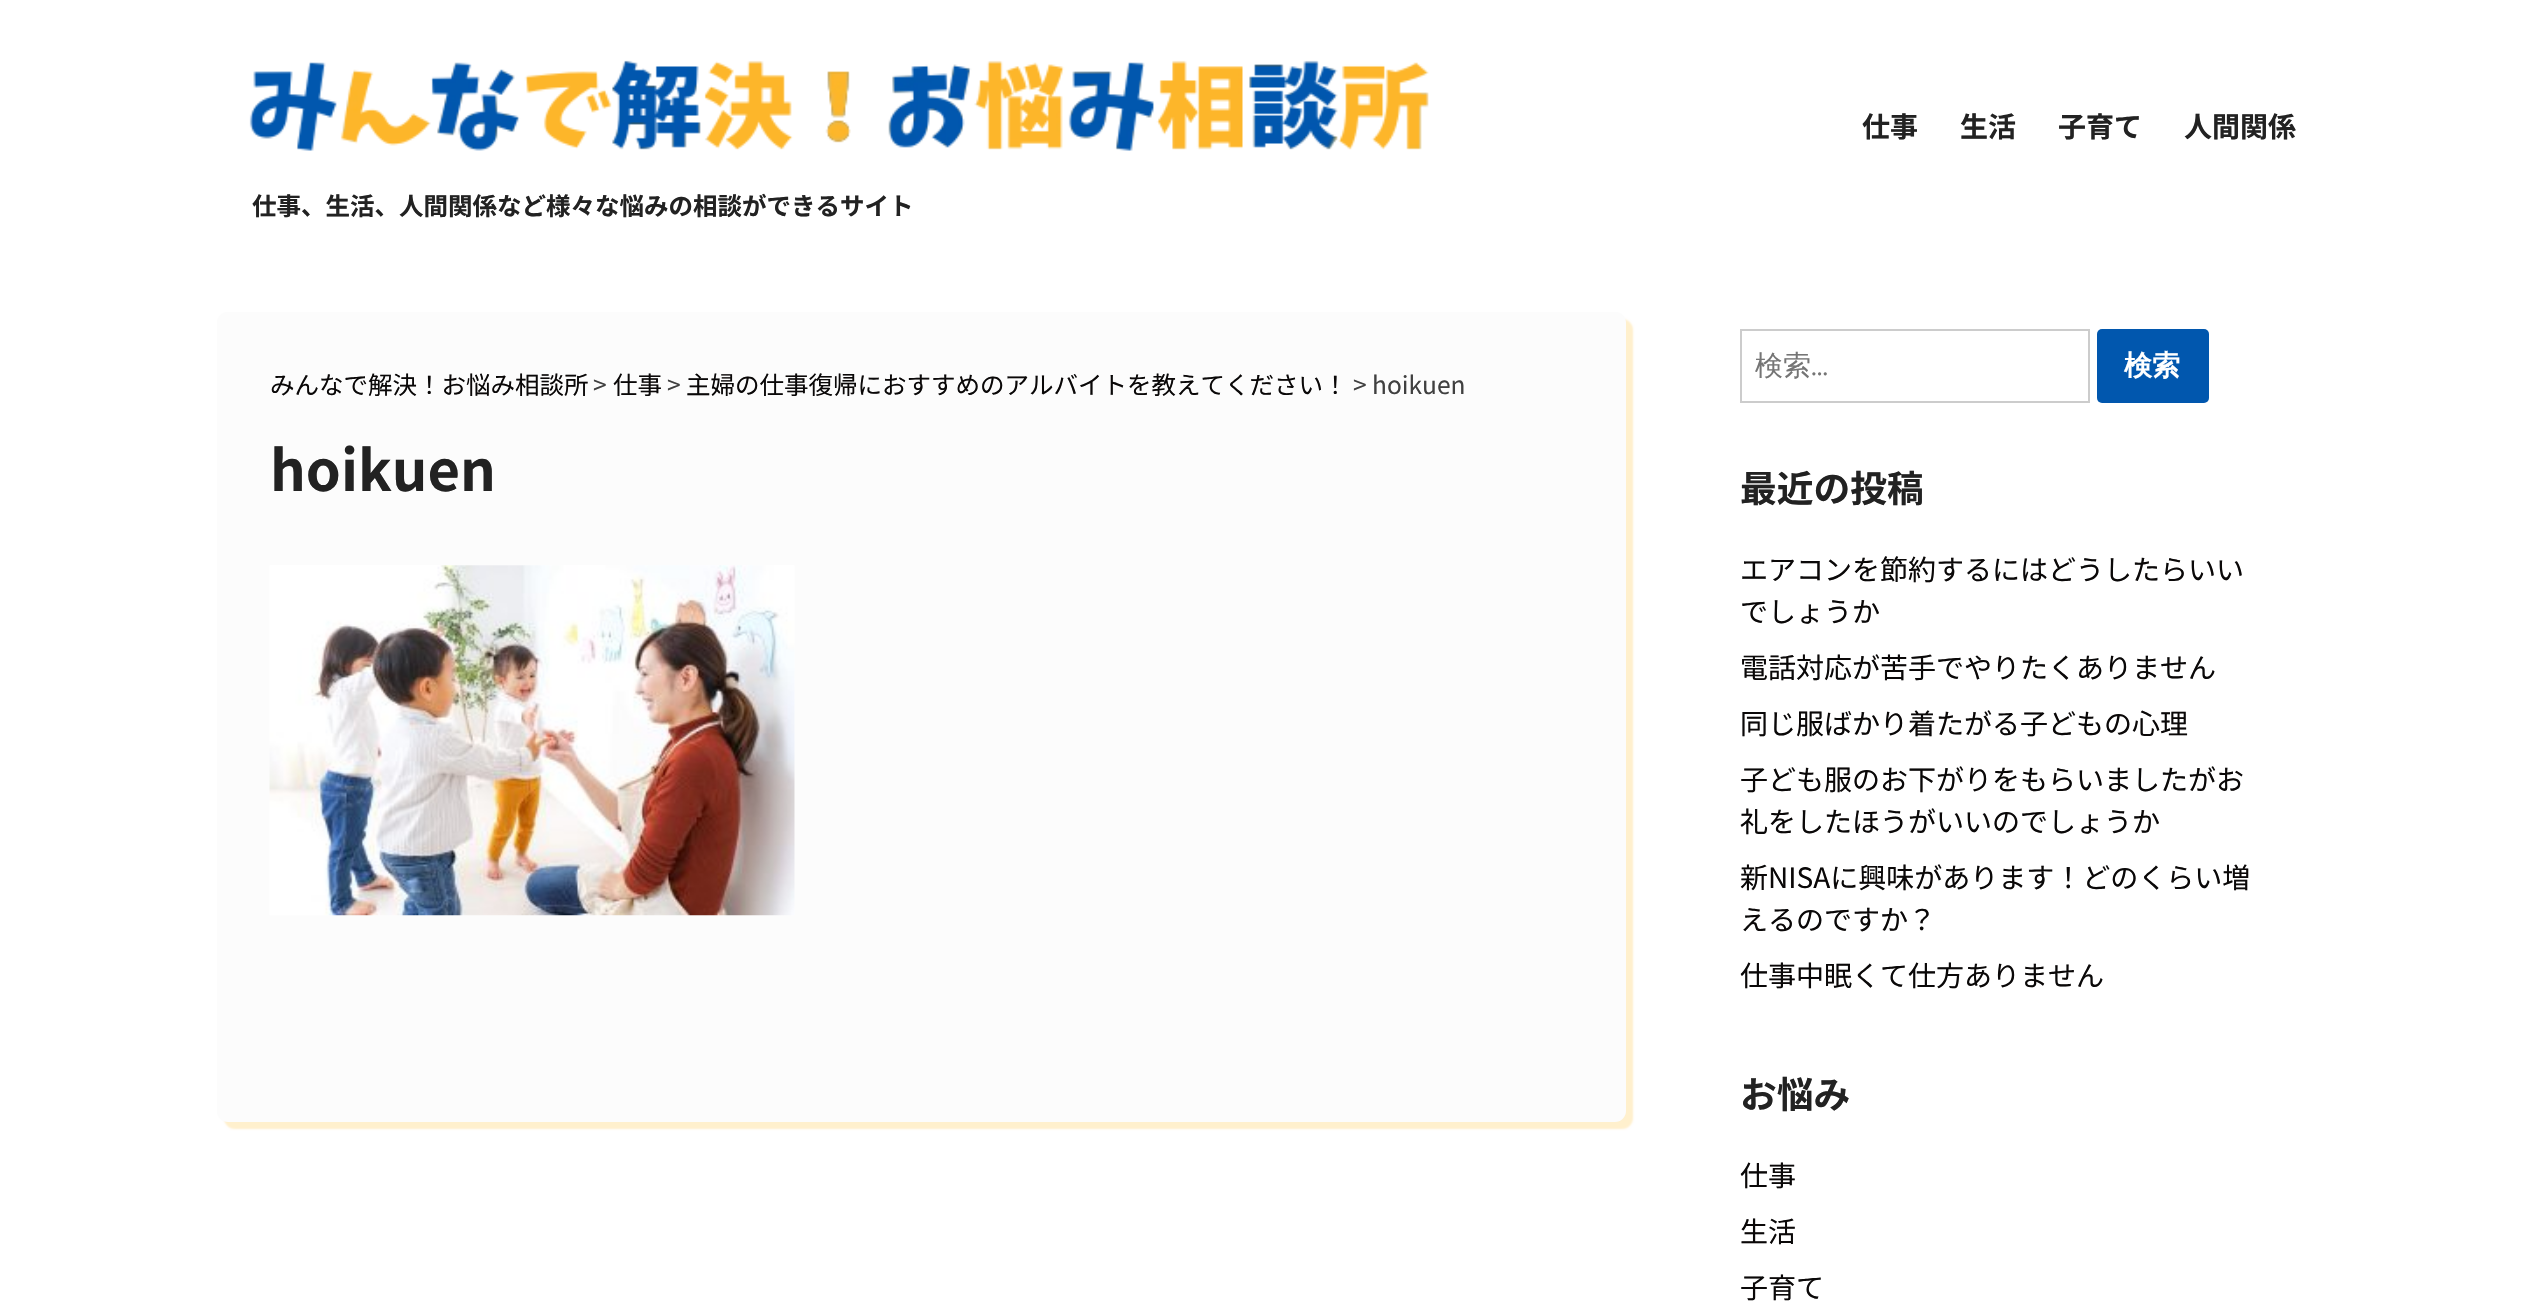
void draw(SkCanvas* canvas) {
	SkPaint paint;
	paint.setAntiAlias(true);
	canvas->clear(0xffffffff);
	SkFont f1(fontMgr->matchFamilyStyle("Noto Sans JP", SkFontStyle::Bold()), 28);
	f1.setSubpixel(true);
	paint.setColor(0xff222222);
	canvas->drawString("仕事", 1862, 137, f1, paint);
	canvas->drawString("生活", 1960, 137, f1, paint);
	canvas->drawString("子育て", 2058, 137, f1, paint);
	canvas->drawString("人間関係", 2184, 137, f1, paint);
	canvas->drawImageRect(SkImages::DeferredFromEncodedData(SkData::MakeFromFileName("img1.png")), SkRect::MakeXYWH(249, 60, 1180, 91), SkSamplingOptions());
	SkFont f2(fontMgr->matchFamilyStyle("Noto Sans JP", SkFontStyle::Bold()), 24.5);
	f2.setSubpixel(true);
	canvas->drawString("仕事、生活、人間関係など様々な悩みの相談ができるサイト", 252, 215, f2, paint);
	paint.setColor(0xfffff0cd);
	paint.setMaskFilter(SkMaskFilter::MakeBlur(kNormal_SkBlurStyle, 1));
	canvas->drawRoundRect(SkRect::MakeXYWH(224, 319, 1409, 810), 11, 11, paint);
	paint.setMaskFilter(nullptr);
	paint.setColor(0xfffcfcfc);
	canvas->drawRoundRect(SkRect::MakeXYWH(217, 312, 1409, 810), 11, 11, paint);
	SkFont f3(fontMgr->matchFamilyStyle("Noto Sans JP", SkFontStyle::Normal()), 24.5);
	f3.setSubpixel(true);
	paint.setColor(0xff0a0808);
	canvas->drawString("みんなで解決！お悩み相談所", 270, 394, f3, paint);
	paint.setColor(0xff404040);
	canvas->drawString(">", 593, 394, f3, paint);
	paint.setColor(0xff0a0808);
	canvas->drawString("仕事", 613, 394, f3, paint);
	paint.setColor(0xff404040);
	canvas->drawString(">", 667, 394, f3, paint);
	paint.setColor(0xff0a0808);
	canvas->drawString("主婦の仕事復帰におすすめのアルバイトを教えてください！", 686, 394, f3, paint);
	paint.setColor(0xff404040);
	canvas->drawString("> hoikuen", 1353, 394, f3, paint);
	SkFont f4(fontMgr->matchFamilyStyle("Noto Sans JP", SkFontStyle::Bold()), 56);
	f4.setSubpixel(true);
	paint.setColor(0xff222222);
	canvas->drawString("hoikuen", 270, 491, f4, paint);
	canvas->drawImageRect(SkImages::DeferredFromEncodedData(SkData::MakeFromFileName("img2.png")), SkRect::MakeXYWH(269, 565, 526, 351), SkSamplingOptions());
	paint.setStroke(true);
	paint.setStrokeWidth(2);
	paint.setColor(0xffcccccc);
	canvas->drawRect(SkRect::MakeXYWH(1741, 330, 348, 72), paint);
	SkFont f5(fontMgr->matchFamilyStyle("WenQuanYi Zen Hei", SkFontStyle(500, SkFontStyle::kNormal_Width, SkFontStyle::kUpright_Slant)), 28);
	f5.setSubpixel(true);
	paint.setStroke(false);
	paint.setColor(0xff757575);
	canvas->drawString("検索", 1755, 375, f5, paint);
	SkFont f6(fontMgr->matchFamilyStyle("Figtree", SkFontStyle::Normal()), 28);
	f6.setSubpixel(true);
	canvas->drawString("…", 1811, 375, f6, paint);
	paint.setColor(0xff0157ae);
	canvas->drawRoundRect(SkRect::MakeXYWH(2097, 329, 112, 74), 5, 5, paint);
	SkFont f7(fontMgr->matchFamilyStyle("WenQuanYi Zen Hei", SkFontStyle::Bold()), 28);
	f7.setSubpixel(true);
	paint.setColor(0xffffffff);
	canvas->drawString("検索", 2124, 375, f7, paint);
	SkFont f8(fontMgr->matchFamilyStyle("Noto Sans JP", SkFontStyle::Bold()), 36.75);
	f8.setSubpixel(true);
	paint.setColor(0xff222222);
	canvas->drawString("最近の投稿", 1740, 502, f8, paint);
	SkFont f9(fontMgr->matchFamilyStyle("Noto Sans JP", SkFontStyle::Normal()), 28);
	f9.setSubpixel(true);
	paint.setColor(0xff0a0808);
	canvas->drawString("エアコンを節約するにはどうしたらいい", 1740, 580, f9, paint);
	canvas->drawString("でしょうか", 1740, 622, f9, paint);
	canvas->drawString("電話対応が苦手でやりたくありません", 1740, 678, f9, paint);
	canvas->drawString("同じ服ばかり着たがる子どもの心理", 1740, 734, f9, paint);
	canvas->drawString("子ども服のお下がりをもらいましたがお", 1740, 790, f9, paint);
	canvas->drawString("礼をしたほうがいいのでしょうか", 1740, 832, f9, paint);
	canvas->drawString("新NISAに興味があります！どのくらい増", 1740, 888, f9, paint);
	canvas->drawString("えるのですか？", 1740, 930, f9, paint);
	canvas->drawString("仕事中眠くて仕方ありません", 1740, 986, f9, paint);
	paint.setColor(0xff222222);
	canvas->drawString("お悩み", 1740, 1108, f8, paint);
	paint.setColor(0xff0a0808);
	canvas->drawString("仕事", 1740, 1186, f9, paint);
	canvas->drawString("生活", 1740, 1242, f9, paint);
	canvas->drawString("子育て", 1740, 1298, f9, paint);
}
